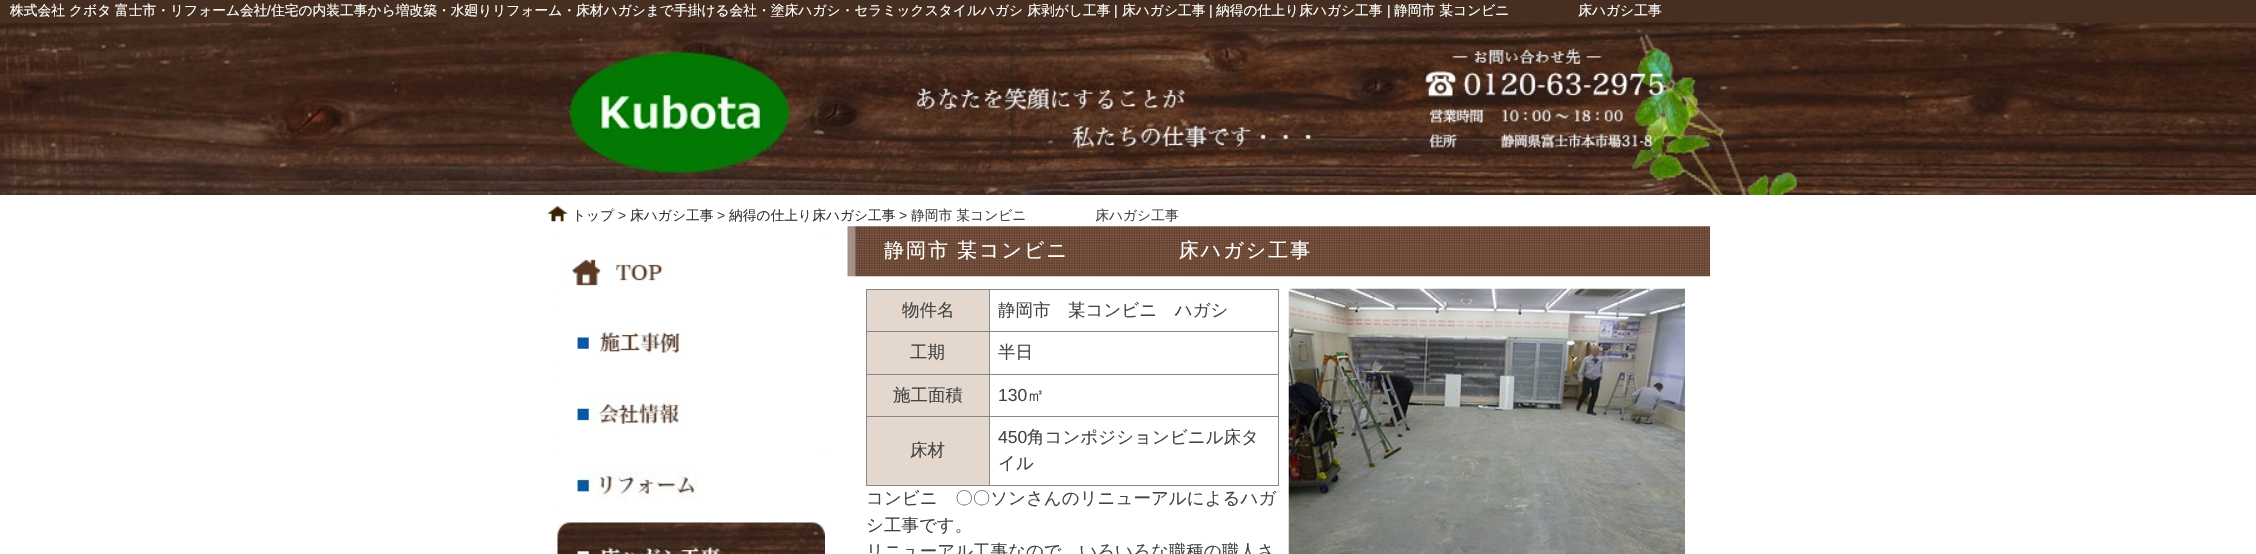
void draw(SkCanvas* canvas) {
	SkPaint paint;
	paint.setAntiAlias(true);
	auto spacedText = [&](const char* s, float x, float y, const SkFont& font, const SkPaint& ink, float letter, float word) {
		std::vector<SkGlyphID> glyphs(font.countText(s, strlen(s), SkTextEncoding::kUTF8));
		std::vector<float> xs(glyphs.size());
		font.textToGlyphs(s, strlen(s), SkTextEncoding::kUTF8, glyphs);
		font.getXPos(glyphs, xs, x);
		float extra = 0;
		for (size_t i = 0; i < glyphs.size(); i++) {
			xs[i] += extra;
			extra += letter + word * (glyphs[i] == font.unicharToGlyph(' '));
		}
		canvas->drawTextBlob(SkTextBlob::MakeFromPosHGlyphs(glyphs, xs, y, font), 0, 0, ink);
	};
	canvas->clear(0xffffffff);
	canvas->drawImageRect(SkImages::DeferredFromEncodedData(SkData::MakeFromFileName("img1.png")), SkRect::MakeXYWH(0, 23, 2256, 172), SkSamplingOptions());
	paint.setColor(0xff462f21);
	canvas->drawRect(SkRect::MakeXYWH(0, 0, 2256, 23), paint);
	SkFont f1(fontMgr->matchFamilyStyle("WenQuanYi Zen Hei", SkFontStyle(500, SkFontStyle::kNormal_Width, SkFontStyle::kUpright_Slant)), 13.75);
	f1.setSubpixel(true);
	paint.setColor(0xffffffff);
	canvas->drawString("株式会社 クボタ", 10, 15, f1, paint);
	canvas->drawString("富士市・リフォーム会社", 115, 15, f1, paint);
	SkFont f2(fontMgr->matchFamilyStyle("Liberation Sans", SkFontStyle::Normal()), 13.75);
	f2.setSubpixel(true);
	canvas->drawString("/", 267, 15, f2, paint);
	canvas->drawString("住宅の内装工事から増改築・水廻りリフォーム・床材ハガシまで手掛ける会社・塗床ハガシ・セラミックスタイルハガシ 床剥がし工事", 271, 15, f1, paint);
	canvas->drawString("|", 1114, 15, f2, paint);
	canvas->drawString("床ハガシ工事", 1122, 15, f1, paint);
	canvas->drawString("|", 1209, 15, f2, paint);
	canvas->drawString("納得の仕上り床ハガシ工事", 1216, 15, f1, paint);
	canvas->drawString("|", 1387, 15, f2, paint);
	canvas->drawString("静岡市 某コンビニ　　　　　床ハガシ工事", 1394, 15, f1, paint);
	canvas->drawImageRect(SkImages::DeferredFromEncodedData(SkData::MakeFromFileName("img2.png")), SkRect::MakeXYWH(535, 22, 1188, 173), SkSamplingOptions());
	canvas->drawImageRect(SkImages::DeferredFromEncodedData(SkData::MakeFromFileName("img3.png")), SkRect::MakeXYWH(547, 206, 21, 16), SkSamplingOptions());
	paint.setColor(0xff333333);
	canvas->drawString("トップ", 572, 220, f1, paint);
	paint.setColor(0xff444444);
	canvas->drawString(">", 618, 220, f2, paint);
	paint.setColor(0xff333333);
	canvas->drawString("床ハガシ工事", 630, 220, f1, paint);
	paint.setColor(0xff444444);
	canvas->drawString(">", 717, 220, f2, paint);
	paint.setColor(0xff333333);
	canvas->drawString("納得の仕上り床ハガシ工事", 729, 220, f1, paint);
	paint.setColor(0xff444444);
	canvas->drawString(">", 899, 220, f2, paint);
	canvas->drawString("静岡市 某コンビニ　　　　　床ハガシ工事", 911, 220, f1, paint);
	canvas->drawImageRect(SkImages::DeferredFromEncodedData(SkData::MakeFromFileName("img4.png")), SkRect::MakeXYWH(557, 237, 268, 57), SkSamplingOptions());
	canvas->drawImageRect(SkImages::DeferredFromEncodedData(SkData::MakeFromFileName("img5.png")), SkRect::MakeXYWH(557, 237, 268, 57), SkSamplingOptions());
	canvas->drawImageRect(SkImages::DeferredFromEncodedData(SkData::MakeFromFileName("img6.png")), SkRect::MakeXYWH(557, 308, 1, 57), SkSamplingOptions());
	canvas->drawImageRect(SkImages::DeferredFromEncodedData(SkData::MakeFromFileName("img7.png")), SkRect::MakeXYWH(557, 309, 268, 56), SkSamplingOptions());
	canvas->drawImageRect(SkImages::DeferredFromEncodedData(SkData::MakeFromFileName("img8.png")), SkRect::MakeXYWH(557, 380, 1, 57), SkSamplingOptions());
	canvas->drawImageRect(SkImages::DeferredFromEncodedData(SkData::MakeFromFileName("img9.png")), SkRect::MakeXYWH(557, 380, 268, 57), SkSamplingOptions());
	canvas->drawImageRect(SkImages::DeferredFromEncodedData(SkData::MakeFromFileName("img10.png")), SkRect::MakeXYWH(557, 451, 268, 57), SkSamplingOptions());
	canvas->drawImageRect(SkImages::DeferredFromEncodedData(SkData::MakeFromFileName("img11.png")), SkRect::MakeXYWH(557, 451, 268, 57), SkSamplingOptions());
	canvas->drawImageRect(SkImages::DeferredFromEncodedData(SkData::MakeFromFileName("img12.png")), SkRect::MakeXYWH(557, 522, 268, 32), SkSamplingOptions());
	canvas->drawImageRect(SkImages::DeferredFromEncodedData(SkData::MakeFromFileName("img13.png")), SkRect::MakeXYWH(557, 522, 268, 32), SkSamplingOptions());
	canvas->drawImageRect(SkImages::DeferredFromEncodedData(SkData::MakeFromFileName("img14.png")), SkRect::MakeXYWH(847, 226, 863, 51), SkSamplingOptions());
	SkFont f3(fontMgr->matchFamilyStyle("WenQuanYi Zen Hei", SkFontStyle(500, SkFontStyle::kNormal_Width, SkFontStyle::kUpright_Slant)), 20);
	f3.setSubpixel(true);
	paint.setColor(0xffffffff);
	spacedText("静岡市 某コンビニ　　　　　床ハガシ工事", 884, 257, f3, paint, 2, -1);
	paint.setColor(0xffe4d7cd);
	canvas->drawRect(SkRect::MakeXYWH(867, 290, 122, 41), paint);
	paint.setColor(0xff888888);
	canvas->drawRect(SkRect::MakeXYWH(989, 289, 290, 1), paint);
	canvas->drawRect(SkRect::MakeXYWH(989, 331, 290, 1), paint);
	canvas->drawRect(SkRect::MakeXYWH(989, 374, 290, 1), paint);
	canvas->drawRect(SkRect::MakeXYWH(989, 416, 290, 1), paint);
	canvas->drawRect(SkRect::MakeXYWH(1278, 416, 1, 70), paint);
	canvas->drawRect(SkRect::MakeXYWH(989, 485, 290, 1), paint);
	canvas->drawRect(SkRect::MakeXYWH(989, 416, 1, 70), paint);
	canvas->drawRect(SkRect::MakeXYWH(866, 416, 124, 1), paint);
	canvas->drawRect(SkRect::MakeXYWH(989, 374, 1, 44), paint);
	canvas->drawRect(SkRect::MakeXYWH(866, 374, 124, 1), paint);
	canvas->drawRect(SkRect::MakeXYWH(989, 331, 1, 44), paint);
	canvas->drawRect(SkRect::MakeXYWH(866, 331, 124, 1), paint);
	canvas->drawRect(SkRect::MakeXYWH(989, 289, 1, 44), paint);
	canvas->drawRect(SkRect::MakeXYWH(866, 289, 124, 1), paint);
	canvas->drawRect(SkRect::MakeXYWH(866, 485, 124, 1), paint);
	canvas->drawRect(SkRect::MakeXYWH(866, 416, 1, 70), paint);
	canvas->drawRect(SkRect::MakeXYWH(866, 374, 1, 44), paint);
	canvas->drawRect(SkRect::MakeXYWH(866, 331, 1, 44), paint);
	canvas->drawRect(SkRect::MakeXYWH(866, 289, 1, 44), paint);
	SkFont f4(fontMgr->matchFamilyStyle("WenQuanYi Zen Hei", SkFontStyle(500, SkFontStyle::kNormal_Width, SkFontStyle::kUpright_Slant)), 17.5);
	f4.setSubpixel(true);
	paint.setColor(0xff444444);
	canvas->drawString("物件名", 902, 316, f4, paint);
	paint.setColor(0xff888888);
	canvas->drawRect(SkRect::MakeXYWH(1278, 374, 1, 44), paint);
	canvas->drawRect(SkRect::MakeXYWH(1278, 331, 1, 44), paint);
	canvas->drawRect(SkRect::MakeXYWH(1278, 289, 1, 44), paint);
	paint.setColor(0xff444444);
	canvas->drawString("静岡市　某コンビニ　ハガシ", 998, 316, f4, paint);
	paint.setColor(0xffe4d7cd);
	canvas->drawRect(SkRect::MakeXYWH(867, 332, 122, 42), paint);
	paint.setColor(0xff444444);
	canvas->drawString("工期", 910, 358, f4, paint);
	canvas->drawString("半日", 998, 358, f4, paint);
	paint.setColor(0xffe4d7cd);
	canvas->drawRect(SkRect::MakeXYWH(867, 375, 122, 41), paint);
	paint.setColor(0xff444444);
	canvas->drawString("施工面積", 893, 401, f4, paint);
	SkFont f5(fontMgr->matchFamilyStyle("Liberation Sans", SkFontStyle::Normal()), 17.5);
	f5.setSubpixel(true);
	canvas->drawString("130", 998, 401, f5, paint);
	canvas->drawString("㎡", 1027, 401, f4, paint);
	paint.setColor(0xffe4d7cd);
	canvas->drawRect(SkRect::MakeXYWH(867, 417, 122, 68), paint);
	paint.setColor(0xff444444);
	canvas->drawString("床材", 910, 456, f4, paint);
	canvas->drawString("450", 998, 443, f5, paint);
	canvas->drawString("角コンポジションビニル床タ", 1027, 443, f4, paint);
	canvas->drawString("イル", 998, 469, f4, paint);
	canvas->drawImageRect(SkImages::DeferredFromEncodedData(SkData::MakeFromFileName("img15.png")), SkRect::MakeXYWH(1288, 288, 397, 266), SkSamplingOptions());
	canvas->drawString("コンビニ　〇〇ソンさんのリニューアルによるハガ", 866, 504, f4, paint);
	canvas->drawString("シ工事です。", 866, 531, f4, paint);
	canvas->drawString("リニューアル工事なので、いろいろな職種の職人さ", 866, 557, f4, paint);
}
